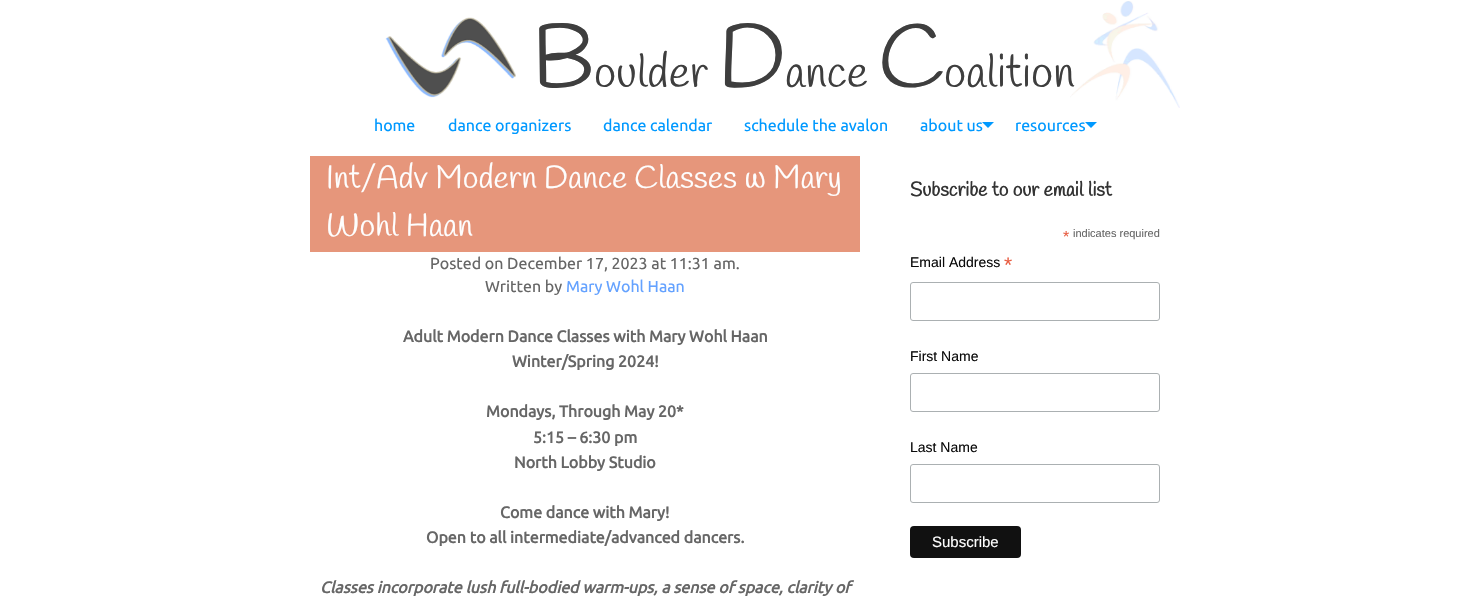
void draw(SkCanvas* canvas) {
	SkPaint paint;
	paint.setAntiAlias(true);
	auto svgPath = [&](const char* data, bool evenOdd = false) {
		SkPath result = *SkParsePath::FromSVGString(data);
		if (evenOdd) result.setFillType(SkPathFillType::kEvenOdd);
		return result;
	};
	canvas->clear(0xffffffff);
	canvas->drawImageRect(SkImages::DeferredFromEncodedData(SkData::MakeFromFileName("img1.png")), SkRect::MakeXYWH(1070, 1, 110, 107), SkSamplingOptions());
	canvas->drawImageRect(SkImages::DeferredFromEncodedData(SkData::MakeFromFileName("img2.png")), SkRect::MakeXYWH(385, 17, 131, 81), SkSamplingOptions());
	SkFont f1(fontMgr->matchFamilyStyle("Handlee", SkFontStyle::Normal()), 90);
	f1.setSubpixel(true);
	paint.setColor(0xff3e3e3e);
	canvas->drawString("B", 532, 87, f1, paint);
	SkFont f2(fontMgr->matchFamilyStyle("Handlee", SkFontStyle::Normal()), 45);
	f2.setSubpixel(true);
	canvas->drawString("oulder", 594, 87, f2, paint);
	canvas->drawString("D", 718, 87, f1, paint);
	canvas->drawString("ance", 785, 87, f2, paint);
	canvas->drawString("C", 878, 87, f1, paint);
	canvas->drawString("oalition", 944, 87, f2, paint);
	SkFont f3(fontMgr->matchFamilyStyle("Ubuntu", SkFontStyle::Normal()), 16);
	f3.setSubpixel(true);
	paint.setColor(0xff0099ff);
	canvas->drawString("home", 374, 131, f3, paint);
	canvas->drawString("dance organizers", 448, 131, f3, paint);
	canvas->drawString("dance calendar", 603, 131, f3, paint);
	canvas->drawString("schedule the avalon", 744, 131, f3, paint);
	canvas->drawString("about us", 920, 131, f3, paint);
	canvas->drawPath(svgPath("M982 122H994L988 128Z"), paint);
	canvas->drawString("resources", 1015, 131, f3, paint);
	canvas->drawPath(svgPath("M1085 122H1097L1091 128Z"), paint);
	paint.setColor(0xffe6967b);
	canvas->drawRect(SkRect::MakeXYWH(310, 156, 550, 96), paint);
	SkFont f4(fontMgr->matchFamilyStyle("Handlee", SkFontStyle::Normal()), 32);
	f4.setSubpixel(true);
	paint.setColor(0xfffefefe);
	canvas->drawString("Int/Adv Modern Dance Classes w Mary", 326, 188, f4, paint);
	canvas->drawString("Wohl Haan", 326, 236, f4, paint);
	paint.setColor(0xff666666);
	canvas->drawString("Posted on December 17, 2023 at 11:31 am.", 430, 269, f3, paint);
	canvas->drawString("Written by", 485, 292, f3, paint);
	paint.setColor(0xff64a2ff);
	canvas->drawString("Mary Wohl Haan", 566, 292, f3, paint);
	SkFont f5(fontMgr->matchFamilyStyle("Ubuntu", SkFontStyle::Bold()), 16);
	f5.setSubpixel(true);
	paint.setColor(0xff666666);
	canvas->drawString("Adult Modern Dance Classes with Mary Wohl Haan", 403, 342, f5, paint);
	canvas->drawString("Winter/Spring 2024!", 512, 367, f5, paint);
	canvas->drawString("Mondays, Through May 20*", 486, 417, f5, paint);
	canvas->drawString("5:15 – 6:30 pm", 533, 443, f5, paint);
	canvas->drawString("North Lobby Studio", 514, 468, f5, paint);
	canvas->drawString("Come dance with Mary!", 500, 518, f5, paint);
	canvas->drawString("Open to all intermediate/advanced dancers.", 426, 543, f5, paint);
	SkFont f6(fontMgr->matchFamilyStyle("Ubuntu", SkFontStyle::BoldItalic()), 16);
	f6.setSubpixel(true);
	canvas->drawString("Classes incorporate lush full-bodied warm-ups, a sense of space, clarity of", 320, 593, f6, paint);
	SkFont f7(fontMgr->matchFamilyStyle("Handlee", SkFontStyle::Bold()), 19.6);
	f7.setSubpixel(true);
	paint.setColor(0xff333333);
	canvas->drawString("Subscribe to our email list", 910, 196, f7, paint);
	SkFont f8(fontMgr->matchFamilyStyle("Liberation Sans", SkFontStyle::Normal()), 16);
	f8.setSubpixel(true);
	paint.setColor(0xffe85c41);
	canvas->drawString("*", 1063, 242, f8, paint);
	SkFont f9(fontMgr->matchFamilyStyle("Liberation Sans", SkFontStyle::Normal()), 11);
	f9.setSubpixel(true);
	paint.setColor(0xff666666);
	canvas->drawString("indicates required", 1073, 237, f9, paint);
	SkFont f10(fontMgr->matchFamilyStyle("Liberation Sans", SkFontStyle::Normal()), 14);
	f10.setSubpixel(true);
	paint.setColor(0xff0a0a0a);
	canvas->drawString("Email Address", 910, 267, f10, paint);
	SkFont f11(fontMgr->matchFamilyStyle("Liberation Sans", SkFontStyle::Normal()), 21);
	f11.setSubpixel(true);
	paint.setColor(0xffe85c41);
	canvas->drawString("*", 1004, 272, f11, paint);
	paint.setStroke(true);
	paint.setStrokeWidth(1);
	paint.setColor(0xffabb0b2);
	canvas->drawRoundRect(SkRect::MakeXYWH(910.5, 282.5, 249, 38), 2.5, 2.5, paint);
	paint.setStroke(false);
	paint.setColor(0xff0a0a0a);
	canvas->drawString("First Name", 910, 361, f10, paint);
	paint.setStroke(true);
	paint.setColor(0xffabb0b2);
	canvas->drawRoundRect(SkRect::MakeXYWH(910.5, 373.5, 249, 38), 2.5, 2.5, paint);
	paint.setStroke(false);
	paint.setColor(0xff0a0a0a);
	canvas->drawString("Last Name", 910, 452, f10, paint);
	paint.setStroke(true);
	paint.setColor(0xffabb0b2);
	canvas->drawRoundRect(SkRect::MakeXYWH(910.5, 464.5, 249, 38), 2.5, 2.5, paint);
	paint.setStroke(false);
	paint.setColor(0xff111111);
	canvas->drawRoundRect(SkRect::MakeXYWH(910, 526, 111, 32), 4, 4, paint);
	SkFont f12(fontMgr->matchFamilyStyle("Liberation Sans", SkFontStyle::Normal()), 15);
	f12.setSubpixel(true);
	paint.setColor(0xfffefefe);
	canvas->drawString("Subscribe", 932, 547, f12, paint);
}
